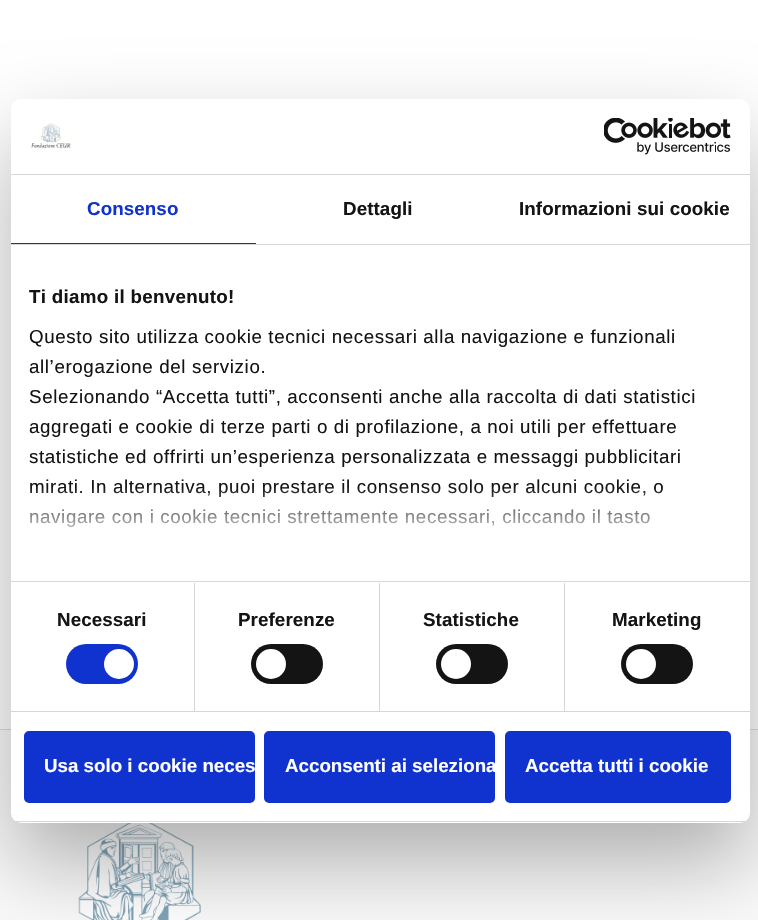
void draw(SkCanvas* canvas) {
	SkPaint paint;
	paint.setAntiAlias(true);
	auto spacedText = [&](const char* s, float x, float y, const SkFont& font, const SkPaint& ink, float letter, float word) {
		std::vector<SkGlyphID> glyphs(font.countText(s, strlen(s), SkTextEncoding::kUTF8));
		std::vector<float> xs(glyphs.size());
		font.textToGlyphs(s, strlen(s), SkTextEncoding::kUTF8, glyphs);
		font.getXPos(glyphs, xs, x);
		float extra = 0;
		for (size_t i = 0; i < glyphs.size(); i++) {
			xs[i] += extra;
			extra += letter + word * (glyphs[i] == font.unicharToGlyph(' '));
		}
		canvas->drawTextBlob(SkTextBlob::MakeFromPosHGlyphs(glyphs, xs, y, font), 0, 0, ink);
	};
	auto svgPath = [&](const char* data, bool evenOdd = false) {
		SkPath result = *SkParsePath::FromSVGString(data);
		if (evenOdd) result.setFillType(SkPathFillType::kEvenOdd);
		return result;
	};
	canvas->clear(0xffffffff);
	paint.setColor(0xfffafafa);
	canvas->drawRect(SkRect::MakeXYWH(0, 730, 758, 190), paint);
	paint.setColor(0xffdddddd);
	canvas->drawRect(SkRect::MakeXYWH(0, 729, 758, 1), paint);
	canvas->drawImageRect(SkImages::DeferredFromEncodedData(SkData::MakeFromFileName("img3.png")), SkRect::MakeXYWH(78, 823, 123, 97), SkSamplingOptions());
	paint.setColor(0x4d000000);
	paint.setMaskFilter(SkMaskFilter::MakeBlur(kNormal_SkBlurStyle, 42.5));
	canvas->drawRoundRect(SkRect::MakeXYWH(11, 139, 739, 724), 10, 10, paint);
	paint.setMaskFilter(nullptr);
	paint.setColor(0xffffffff);
	canvas->drawRoundRect(SkRect::MakeXYWH(11, 99, 739, 724), 10, 10, paint);
	paint.setColor(0xffd6d6d6);
	canvas->drawRect(SkRect::MakeXYWH(11, 174, 739, 1), paint);
	canvas->drawImageRect(SkImages::DeferredFromEncodedData(SkData::MakeFromFileName("img1.png")), SkRect::MakeXYWH(31, 123, 40, 25), SkSamplingOptions());
	canvas->drawImageRect(SkImages::DeferredFromEncodedData(SkData::MakeFromFileName("img2.png")), SkRect::MakeXYWH(604, 118, 127, 37), SkSamplingOptions());
	canvas->drawRect(SkRect::MakeXYWH(11, 244, 739, 1), paint);
	paint.setColor(0xff1032cf);
	canvas->drawRect(SkRect::MakeXYWH(11, 243, 245, 1), paint);
	SkFont f1(fontMgr->matchFamilyStyle("Liberation Sans", SkFontStyle::Bold()), 18.75);
	f1.setSubpixel(true);
	spacedText("Consenso", 87, 215, f1, paint, 0.1, 0);
	paint.setColor(0xff141414);
	spacedText("Dettagli", 343, 215, f1, paint, 0.1, 0);
	spacedText("Informazioni sui cookie", 519, 215, f1, paint, 0.1, 0);
	paint.setColor(0xffd6d6d6);
	canvas->drawRect(SkRect::MakeXYWH(11, 581, 739, 1), paint);
	paint.setColor(0xff141414);
	spacedText("Ti diamo il benvenuto!", 29, 303, f1, paint, 0.3, 0);
	SkFont f2(fontMgr->matchFamilyStyle("Liberation Sans", SkFontStyle::Normal()), 18.75);
	f2.setSubpixel(true);
	spacedText("Questo sito utilizza cookie tecnici necessari alla navigazione e funzionali", 29, 343, f2, paint, 0.62, 0);
	spacedText("all’erogazione del servizio.", 29, 373, f2, paint, 0.62, 0);
	spacedText("Selezionando “Accetta tutti”, acconsenti anche alla raccolta di dati statistici", 29, 403, f2, paint, 0.62, 0);
	spacedText("aggregati e cookie di terze parti o di profilazione, a noi utili per effettuare", 29, 433, f2, paint, 0.62, 0);
	spacedText("statistiche ed offrirti un’esperienza personalizzata e messaggi pubblicitari", 29, 463, f2, paint, 0.62, 0);
	spacedText("mirati. In alternativa, puoi prestare il consenso solo per alcuni cookie, o", 29, 493, f2, paint, 0.62, 0);
	spacedText("navigare con i cookie tecnici strettamente necessari, cliccando il tasto", 29, 523, f2, paint, 0.62, 0);
	{
		const SkColor colors[] = {0xffffffff, 0xccffffff, 0x00ffffff};
		const float stops[] = {0, 0.5, 1};
		const SkPoint ends[] = {{372, 581}, {372, 487}};
		paint.setShader(SkGradientShader::MakeLinear(ends, colors, stops, 3, SkTileMode::kClamp));
		paint.setAlpha(255);
	}
	canvas->drawRect(SkRect::MakeXYWH(30, 488, 633, 39), paint);
	paint.setShader(nullptr);
	paint.setColor(0xffd6d6d6);
	canvas->drawRect(SkRect::MakeXYWH(11, 711, 739, 1), paint);
	canvas->drawRect(SkRect::MakeXYWH(194, 583, 1, 128), paint);
	paint.setColor(0xff141414);
	spacedText("Necessari", 57, 626, f1, paint, 0.1, 0);
	paint.setColor(0xff1032cf);
	canvas->drawRoundRect(SkRect::MakeXYWH(66, 644, 72, 40), 20, 20, paint);
	paint.setColor(0xffffffff);
	canvas->drawCircle(119, 664, 15, paint);
	paint.setColor(0xffd6d6d6);
	canvas->drawRect(SkRect::MakeXYWH(379, 583, 1, 128), paint);
	paint.setColor(0xff141414);
	spacedText("Preferenze", 238, 626, f1, paint, 0.1, 0);
	canvas->drawRoundRect(SkRect::MakeXYWH(251, 644, 72, 40), 20, 20, paint);
	paint.setColor(0xffffffff);
	canvas->drawCircle(271, 664, 15, paint);
	paint.setColor(0xffd6d6d6);
	canvas->drawRect(SkRect::MakeXYWH(564, 583, 1, 128), paint);
	paint.setColor(0xff141414);
	spacedText("Statistiche", 423, 626, f1, paint, 0.1, 0);
	canvas->drawRoundRect(SkRect::MakeXYWH(436, 644, 72, 40), 20, 20, paint);
	paint.setColor(0xffffffff);
	canvas->drawCircle(456, 664, 15, paint);
	paint.setColor(0xff141414);
	spacedText("Marketing", 612, 626, f1, paint, 0.1, 0);
	canvas->drawRoundRect(SkRect::MakeXYWH(621, 644, 72, 40), 20, 20, paint);
	paint.setColor(0xffffffff);
	canvas->drawCircle(641, 664, 15, paint);
	canvas->save();
	canvas->clipPath(svgPath("M21 99H740C745.5 99 750 103.5 750 109V813C750 818.5 745.5 823 740 823H21C15.5 823 11 818.5 11 813V109C11 103.5 15.5 99 21 99Z"), true);
	paint.setColor(0xffd6d6d6);
	canvas->drawRect(SkRect::MakeXYWH(11, 821, 739, 1), paint);
	canvas->restore();
	paint.setColor(0xff1032cf);
	canvas->drawRoundRect(SkRect::MakeXYWH(25.5, 732.5, 228, 69), 3.5, 3.5, paint);
	paint.setStroke(true);
	paint.setStrokeWidth(3);
	canvas->drawRoundRect(SkRect::MakeXYWH(25.5, 732.5, 228, 69), 3.5, 3.5, paint);
	paint.setStroke(false);
	paint.setColor(0xffffffff);
	canvas->drawString("Usa solo i cookie neces", 44, 772, f1, paint);
	paint.setColor(0xff1032cf);
	canvas->drawRoundRect(SkRect::MakeXYWH(265.5, 732.5, 228, 69), 3.5, 3.5, paint);
	paint.setStroke(true);
	canvas->drawRoundRect(SkRect::MakeXYWH(265.5, 732.5, 228, 69), 3.5, 3.5, paint);
	paint.setStroke(false);
	paint.setColor(0xffffffff);
	canvas->drawString("Acconsenti ai seleziona", 285, 772, f1, paint);
	paint.setColor(0xff1032cf);
	canvas->drawRoundRect(SkRect::MakeXYWH(506.5, 732.5, 223, 69), 3.5, 3.5, paint);
	paint.setStroke(true);
	canvas->drawRoundRect(SkRect::MakeXYWH(506.5, 732.5, 223, 69), 3.5, 3.5, paint);
	paint.setStroke(false);
	paint.setColor(0xffffffff);
	canvas->drawString("Accetta tutti i cookie", 525, 772, f1, paint);
}
